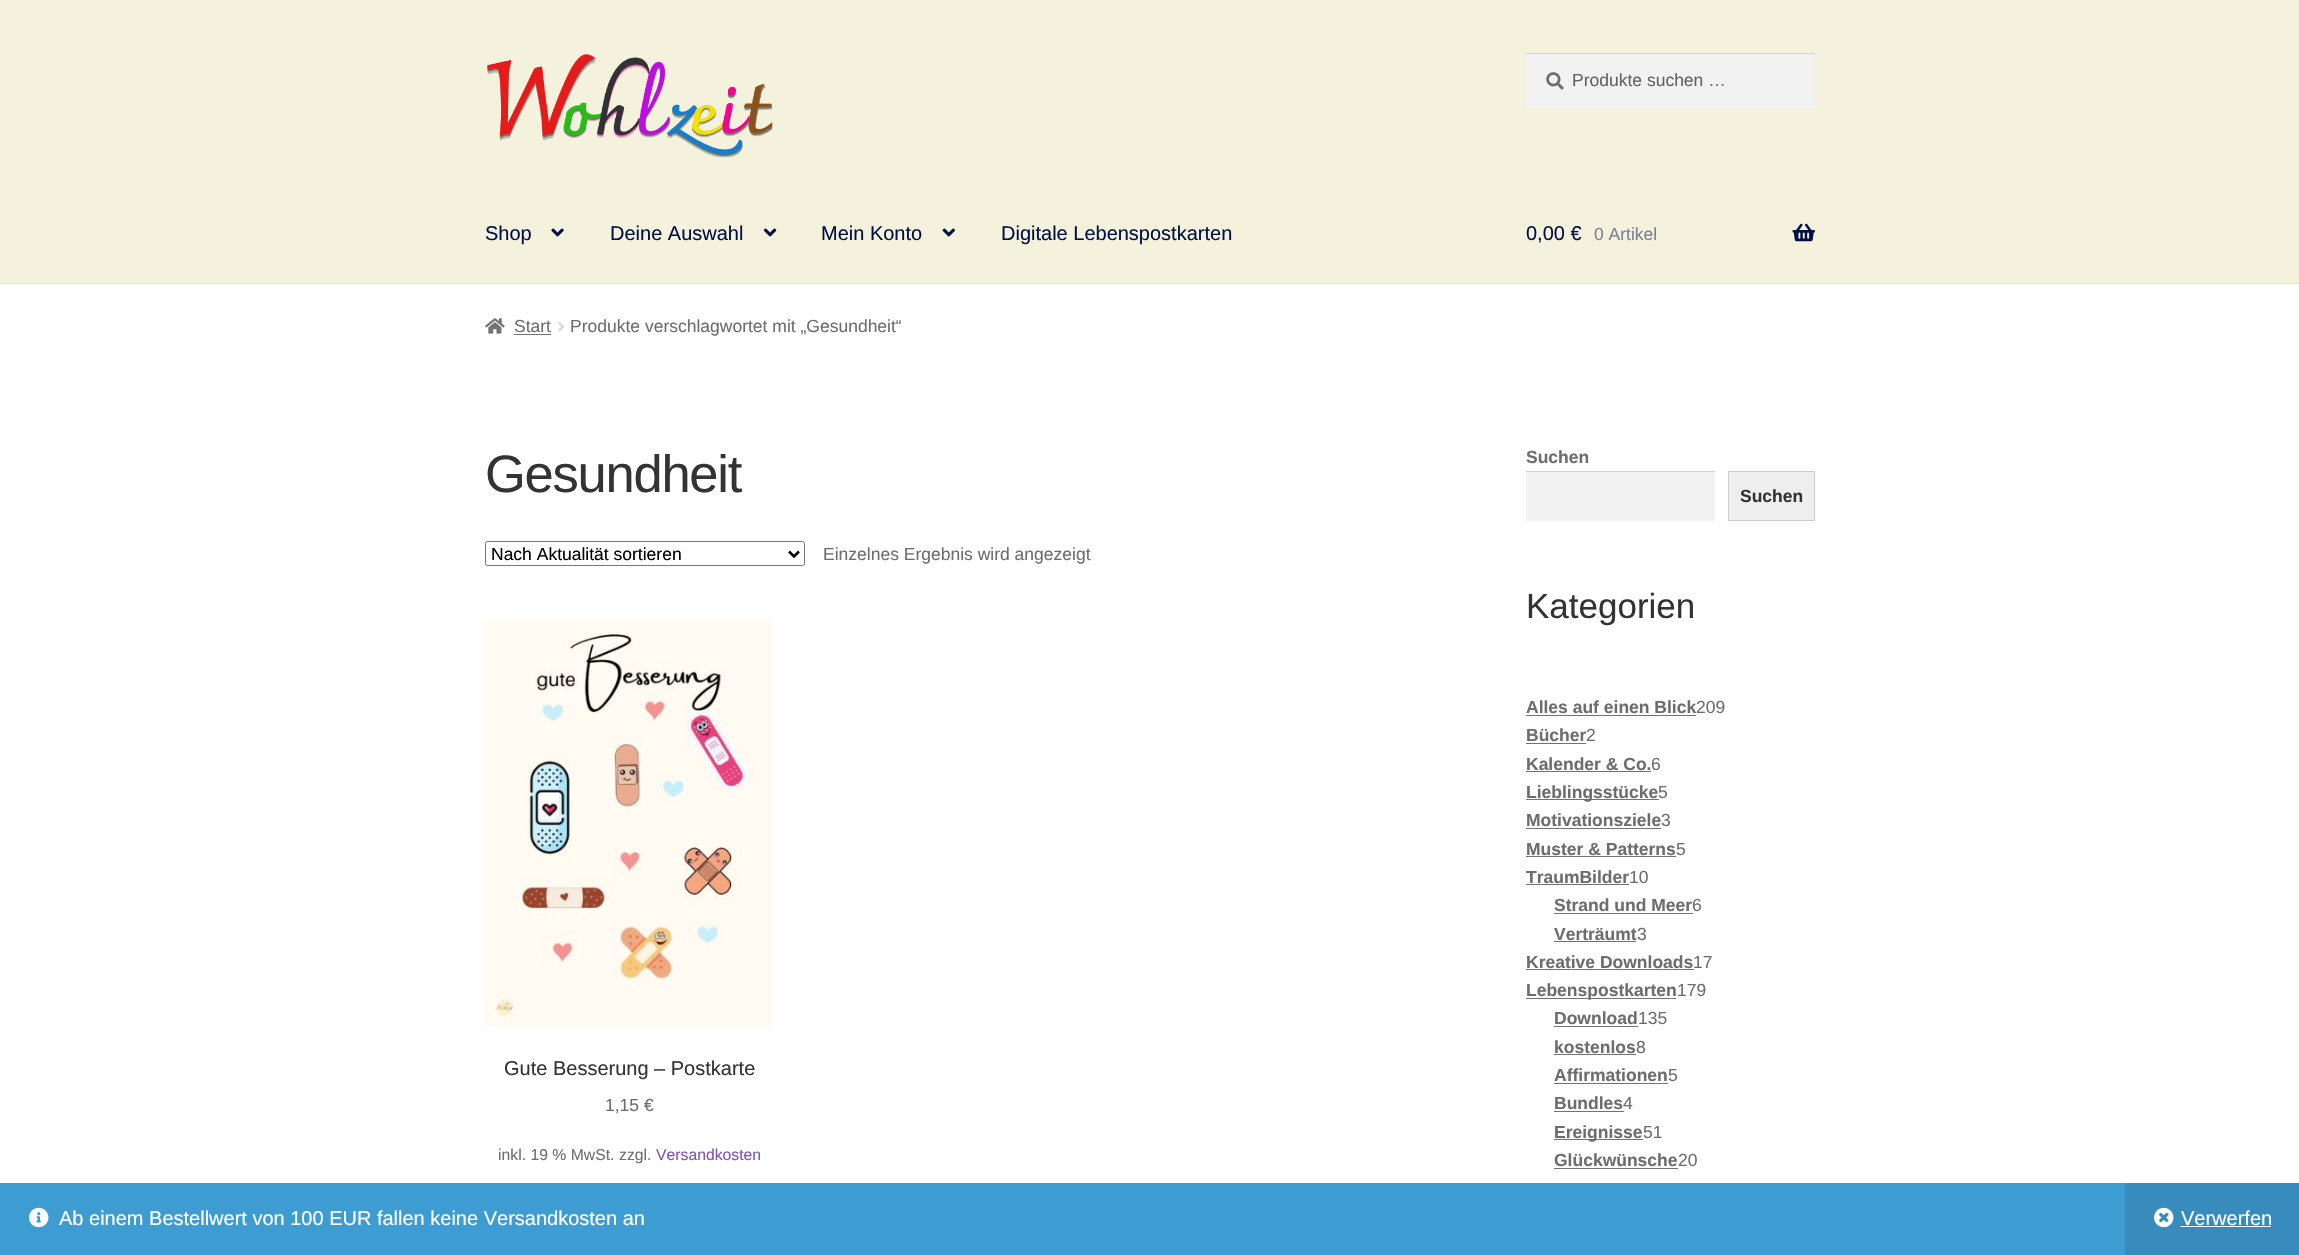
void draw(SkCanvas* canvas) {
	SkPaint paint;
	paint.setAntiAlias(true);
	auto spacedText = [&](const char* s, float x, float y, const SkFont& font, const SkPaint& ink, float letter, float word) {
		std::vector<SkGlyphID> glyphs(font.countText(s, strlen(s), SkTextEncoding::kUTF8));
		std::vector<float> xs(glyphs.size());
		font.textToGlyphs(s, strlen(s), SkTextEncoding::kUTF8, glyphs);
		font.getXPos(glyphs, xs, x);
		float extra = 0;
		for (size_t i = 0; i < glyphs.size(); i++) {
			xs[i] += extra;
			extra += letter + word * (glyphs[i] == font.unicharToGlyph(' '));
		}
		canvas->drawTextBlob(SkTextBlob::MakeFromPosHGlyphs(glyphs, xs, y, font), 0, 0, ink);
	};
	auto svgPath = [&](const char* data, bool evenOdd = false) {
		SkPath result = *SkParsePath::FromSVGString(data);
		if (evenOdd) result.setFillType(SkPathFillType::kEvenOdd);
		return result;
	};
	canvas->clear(0xffffffff);
	paint.setColor(0xfff4f1dc);
	canvas->drawRect(SkRect::MakeXYWH(0, 0, 2299, 283), paint);
	paint.setColor(0xffe5e2cd);
	canvas->drawRect(SkRect::MakeXYWH(0, 283, 2299, 1), paint);
	canvas->drawImageRect(SkImages::DeferredFromEncodedData(SkData::MakeFromFileName("img1.png")), SkRect::MakeXYWH(487, 54, 286, 104), SkSamplingOptions());
	paint.setColor(0xfff2f2f2);
	canvas->drawRect(SkRect::MakeXYWH(1526, 54, 289, 54), paint);
	canvas->drawImageRect(SkImages::DeferredFromEncodedData(SkData::MakeFromFileName("img2.png")), SkRect::MakeXYWH(1546, 72, 18, 18), SkSamplingOptions());
	paint.setColor(0xffd4d4d4);
	canvas->drawRect(SkRect::MakeXYWH(1526, 53, 289, 1), paint);
	SkFont f1(fontMgr->matchFamilyStyle("Liberation Sans", SkFontStyle::Normal()), 17.5);
	f1.setSubpixel(true);
	paint.setColor(0xff616161);
	canvas->drawString("Produkte suchen …", 1572, 86, f1, paint);
	SkFont f2(fontMgr->matchFamilyStyle("Liberation Sans", SkFontStyle::Normal()), 20);
	f2.setSubpixel(true);
	paint.setColor(0xff001047);
	canvas->drawString("Shop", 485, 240, f2, paint);
	canvas->drawImageRect(SkImages::DeferredFromEncodedData(SkData::MakeFromFileName("img3.png")), SkRect::MakeXYWH(551, 228, 13, 9), SkSamplingOptions());
	canvas->drawString("Deine Auswahl", 610, 240, f2, paint);
	canvas->drawImageRect(SkImages::DeferredFromEncodedData(SkData::MakeFromFileName("img4.png")), SkRect::MakeXYWH(763, 228, 14, 9), SkSamplingOptions());
	canvas->drawString("Mein Konto", 821, 240, f2, paint);
	canvas->drawImageRect(SkImages::DeferredFromEncodedData(SkData::MakeFromFileName("img5.png")), SkRect::MakeXYWH(942, 228, 13, 9), SkSamplingOptions());
	canvas->drawString("Digitale Lebenspostkarten", 1001, 240, f2, paint);
	canvas->drawString("0,00 €", 1526, 240, f2, paint);
	paint.setColor(0xff7a8192);
	canvas->drawString("0 Artikel", 1594, 240, f1, paint);
	canvas->drawImageRect(SkImages::DeferredFromEncodedData(SkData::MakeFromFileName("img6.png")), SkRect::MakeXYWH(1792, 223, 23, 19), SkSamplingOptions());
	canvas->drawImageRect(SkImages::DeferredFromEncodedData(SkData::MakeFromFileName("img7.png")), SkRect::MakeXYWH(485, 318, 20, 16), SkSamplingOptions());
	paint.setColor(0xff6d6d6d);
	canvas->drawString("Start", 514, 332, f1, paint);
	paint.setColor(0xff727272);
	canvas->drawRect(SkRect::MakeXYWH(514, 334, 37, 1), paint);
	canvas->drawImageRect(SkImages::DeferredFromEncodedData(SkData::MakeFromFileName("img8.png")), SkRect::MakeXYWH(558, 322, 7, 10), SkSamplingOptions());
	paint.setColor(0xff6d6d6d);
	canvas->drawString("Produkte verschlagwortet mit „Gesundheit“", 570, 332, f1, paint);
	SkFont f3(fontMgr->matchFamilyStyle("Liberation Sans", SkFontStyle::Normal()), 52.5);
	f3.setSubpixel(true);
	paint.setColor(0xff333333);
	spacedText("Gesundheit", 485, 492, f3, paint, -1.25, 0);
	paint.setStroke(true);
	paint.setStrokeWidth(1);
	paint.setColor(0xff767676);
	canvas->drawRoundRect(SkRect::MakeXYWH(485.5, 541.5, 319, 24), 2, 2, paint);
	paint.setStrokeWidth(2.5);
	paint.setColor(0xff000000);
	canvas->drawPath(svgPath("M789 551.5L794 556.5L799 551.5"), paint);
	paint.setStroke(false);
	canvas->drawString("Nach Aktualität sortieren", 491, 560, f1, paint);
	paint.setColor(0xff6d6d6d);
	canvas->drawString("Einzelnes Ergebnis wird angezeigt", 823, 560, f1, paint);
	canvas->drawImageRect(SkImages::DeferredFromEncodedData(SkData::MakeFromFileName("img9.png")), SkRect::MakeXYWH(485, 620, 289, 407), SkSamplingOptions());
	paint.setColor(0xff333333);
	canvas->drawString("Gute Besserung – Postkarte", 504, 1075, f2, paint);
	paint.setColor(0xff6d6d6d);
	canvas->drawString("1,15 €", 605, 1111, f1, paint);
	SkFont f4(fontMgr->matchFamilyStyle("Liberation Sans", SkFontStyle::Normal()), 15.75);
	f4.setSubpixel(true);
	canvas->drawString("inkl. 19 % MwSt.", 498, 1160, f4, paint);
	canvas->drawString("zzgl.", 619, 1160, f4, paint);
	paint.setColor(0xff7f54b3);
	canvas->drawString("Versandkosten", 656, 1160, f4, paint);
	SkFont f5(fontMgr->matchFamilyStyle("Liberation Sans", SkFontStyle::Bold()), 17.5);
	f5.setSubpixel(true);
	paint.setColor(0xff6d6d6d);
	canvas->drawString("Suchen", 1526, 463, f5, paint);
	paint.setColor(0xfff2f2f2);
	canvas->drawRect(SkRect::MakeXYWH(1526, 472, 189, 49), paint);
	paint.setColor(0xffd4d4d4);
	canvas->drawRect(SkRect::MakeXYWH(1526, 471, 189, 1), paint);
	paint.setColor(0xffeeeeee);
	canvas->drawRect(SkRect::MakeXYWH(1728.5, 471.5, 86, 49), paint);
	paint.setStroke(true);
	paint.setStrokeWidth(1);
	paint.setColor(0xffcccccc);
	canvas->drawRect(SkRect::MakeXYWH(1728.5, 471.5, 86, 49), paint);
	paint.setStroke(false);
	paint.setColor(0xff333333);
	canvas->drawString("Suchen", 1740, 502, f5, paint);
	SkFont f6(fontMgr->matchFamilyStyle("Liberation Sans", SkFontStyle::Normal()), 35);
	f6.setSubpixel(true);
	canvas->drawString("Kategorien", 1526, 618, f6, paint);
	paint.setColor(0xff6d6d6d);
	canvas->drawString("Alles auf einen Blick", 1526, 713, f5, paint);
	paint.setColor(0xff727272);
	canvas->drawRect(SkRect::MakeXYWH(1526, 715, 170, 1), paint);
	paint.setColor(0xff6d6d6d);
	canvas->drawString("209", 1696, 713, f1, paint);
	canvas->drawString("Bücher", 1526, 741, f5, paint);
	paint.setColor(0xff727272);
	canvas->drawRect(SkRect::MakeXYWH(1526, 743, 60, 1), paint);
	paint.setColor(0xff6d6d6d);
	canvas->drawString("2", 1586, 741, f1, paint);
	canvas->drawString("Kalender & Co.", 1526, 770, f5, paint);
	paint.setColor(0xff727272);
	canvas->drawRect(SkRect::MakeXYWH(1526, 771, 125, 1), paint);
	paint.setColor(0xff6d6d6d);
	canvas->drawString("6", 1651, 770, f1, paint);
	paint.setColor(0xff727272);
	canvas->drawRect(SkRect::MakeXYWH(1526, 799, 133, 1), paint);
	paint.setColor(0xff6d6d6d);
	canvas->drawString("Lieblingsstücke", 1526, 798, f5, paint);
	canvas->drawString("5", 1658, 798, f1, paint);
	canvas->drawString("Motivationsziele", 1526, 826, f5, paint);
	paint.setColor(0xff727272);
	canvas->drawRect(SkRect::MakeXYWH(1526, 828, 135, 1), paint);
	paint.setColor(0xff6d6d6d);
	canvas->drawString("3", 1661, 826, f1, paint);
	canvas->drawString("Muster & Patterns", 1526, 855, f5, paint);
	paint.setColor(0xff727272);
	canvas->drawRect(SkRect::MakeXYWH(1526, 856, 150, 1), paint);
	paint.setColor(0xff6d6d6d);
	canvas->drawString("5", 1676, 855, f1, paint);
	canvas->drawString("TraumBilder", 1526, 883, f5, paint);
	paint.setColor(0xff727272);
	canvas->drawRect(SkRect::MakeXYWH(1526, 884, 103, 1), paint);
	paint.setColor(0xff6d6d6d);
	canvas->drawString("10", 1629, 883, f1, paint);
	canvas->drawString("Strand und Meer", 1554, 911, f5, paint);
	paint.setColor(0xff727272);
	canvas->drawRect(SkRect::MakeXYWH(1554, 913, 139, 1), paint);
	paint.setColor(0xff6d6d6d);
	canvas->drawString("6", 1692, 911, f1, paint);
	canvas->drawString("Verträumt", 1554, 940, f5, paint);
	paint.setColor(0xff727272);
	canvas->drawRect(SkRect::MakeXYWH(1554, 941, 82, 1), paint);
	paint.setColor(0xff6d6d6d);
	canvas->drawString("3", 1637, 940, f1, paint);
	canvas->drawString("Kreative Downloads", 1526, 968, f5, paint);
	paint.setColor(0xff727272);
	canvas->drawRect(SkRect::MakeXYWH(1526, 969, 168, 1), paint);
	paint.setColor(0xff6d6d6d);
	canvas->drawString("17", 1693, 968, f1, paint);
	paint.setColor(0xff727272);
	canvas->drawRect(SkRect::MakeXYWH(1526, 998, 150, 1), paint);
	paint.setColor(0xff6d6d6d);
	canvas->drawString("Lebenspostkarten", 1526, 996, f5, paint);
	canvas->drawString("179", 1677, 996, f1, paint);
	canvas->drawString("Download", 1554, 1024, f5, paint);
	paint.setColor(0xff727272);
	canvas->drawRect(SkRect::MakeXYWH(1554, 1026, 84, 1), paint);
	paint.setColor(0xff6d6d6d);
	canvas->drawString("135", 1638, 1024, f1, paint);
	canvas->drawString("kostenlos", 1554, 1053, f5, paint);
	paint.setColor(0xff727272);
	canvas->drawRect(SkRect::MakeXYWH(1554, 1054, 82, 1), paint);
	paint.setColor(0xff6d6d6d);
	canvas->drawString("8", 1636, 1053, f1, paint);
	canvas->drawString("Affirmationen", 1554, 1081, f5, paint);
	paint.setColor(0xff727272);
	canvas->drawRect(SkRect::MakeXYWH(1554, 1083, 114, 1), paint);
	paint.setColor(0xff6d6d6d);
	canvas->drawString("5", 1668, 1081, f1, paint);
	canvas->drawString("Bundles", 1554, 1109, f5, paint);
	paint.setColor(0xff727272);
	canvas->drawRect(SkRect::MakeXYWH(1554, 1111, 70, 1), paint);
	paint.setColor(0xff6d6d6d);
	canvas->drawString("4", 1623, 1109, f1, paint);
	paint.setColor(0xff727272);
	canvas->drawRect(SkRect::MakeXYWH(1554, 1139, 89, 1), paint);
	paint.setColor(0xff6d6d6d);
	canvas->drawString("Ereignisse", 1554, 1138, f5, paint);
	canvas->drawString("51", 1643, 1138, f1, paint);
	canvas->drawString("Glückwünsche", 1554, 1166, f5, paint);
	paint.setColor(0xff727272);
	canvas->drawRect(SkRect::MakeXYWH(1554, 1168, 124, 1), paint);
	paint.setColor(0xff6d6d6d);
	canvas->drawString("20", 1678, 1166, f1, paint);
	paint.setColor(0xff3d9cd2);
	canvas->drawRect(SkRect::MakeXYWH(0, 1183, 2125, 72), paint);
	canvas->drawImageRect(SkImages::DeferredFromEncodedData(SkData::MakeFromFileName("img10.png")), SkRect::MakeXYWH(29, 1207, 20, 21), SkSamplingOptions());
	paint.setColor(0xffffffff);
	canvas->drawString("Ab einem Bestellwert von 100 EUR fallen keine Versandkosten an", 59, 1225, f2, paint);
	paint.setColor(0xff378cbd);
	canvas->drawRect(SkRect::MakeXYWH(2125, 1183, 174, 72), paint);
	canvas->drawImageRect(SkImages::DeferredFromEncodedData(SkData::MakeFromFileName("img11.png")), SkRect::MakeXYWH(2154, 1207, 20, 21), SkSamplingOptions());
	paint.setColor(0xffffffff);
	canvas->drawString("Verwerfen", 2181, 1225, f2, paint);
	canvas->drawRect(SkRect::MakeXYWH(2180, 1226, 91, 1), paint);
}
